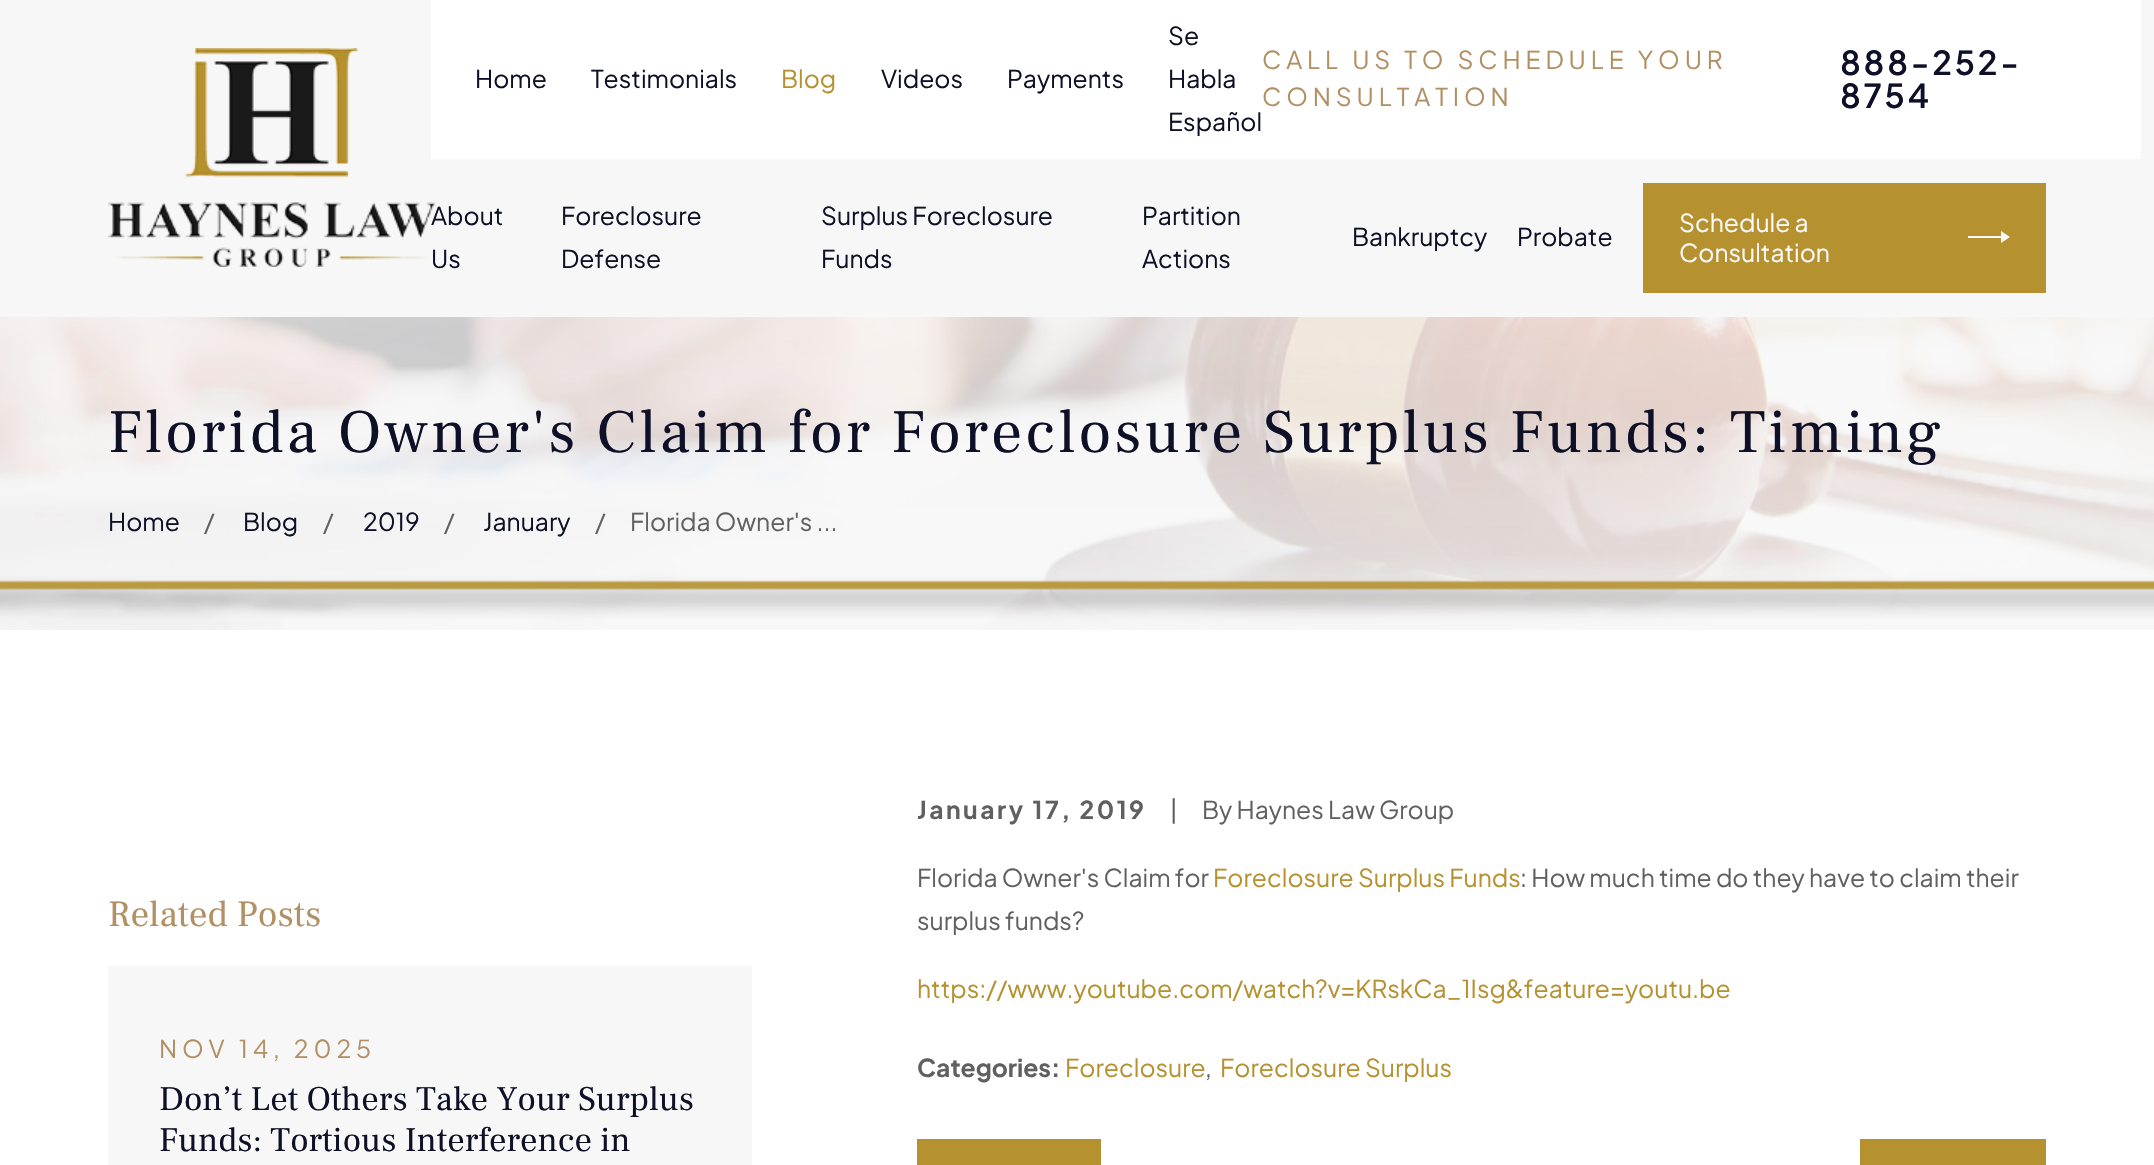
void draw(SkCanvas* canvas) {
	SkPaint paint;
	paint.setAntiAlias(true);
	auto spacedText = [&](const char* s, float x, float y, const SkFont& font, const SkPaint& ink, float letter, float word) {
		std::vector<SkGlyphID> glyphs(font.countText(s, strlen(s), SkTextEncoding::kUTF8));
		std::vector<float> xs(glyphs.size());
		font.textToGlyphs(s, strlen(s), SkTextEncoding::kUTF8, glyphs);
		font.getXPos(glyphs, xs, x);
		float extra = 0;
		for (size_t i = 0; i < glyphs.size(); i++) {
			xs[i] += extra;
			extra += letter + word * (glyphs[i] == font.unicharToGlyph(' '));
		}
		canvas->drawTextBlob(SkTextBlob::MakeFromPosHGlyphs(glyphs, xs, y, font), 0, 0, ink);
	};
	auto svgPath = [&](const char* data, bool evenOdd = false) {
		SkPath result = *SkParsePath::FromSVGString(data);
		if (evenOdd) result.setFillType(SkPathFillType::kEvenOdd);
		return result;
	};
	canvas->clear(0xffffffff);
	paint.setColor(0xfff7f7f7);
	canvas->drawRect(SkRect::MakeXYWH(0, 0, 2154, 317), paint);
	canvas->drawImageRect(SkImages::DeferredFromEncodedData(SkData::MakeFromFileName("img1.png")), SkRect::MakeXYWH(108, 48, 328, 219), SkSamplingOptions());
	paint.setColor(0xffffffff);
	canvas->drawRect(SkRect::MakeXYWH(431, 0, 1710, 159), paint);
	SkFont f1(fontMgr->matchFamilyStyle("Plus Jakarta Sans", SkFontStyle::Normal()), 24.65);
	f1.setSubpixel(true);
	paint.setColor(0xff0d1026);
	canvas->drawString("Home", 475, 88, f1, paint);
	canvas->drawString("Testimonials", 591, 88, f1, paint);
	paint.setColor(0xffb5912f);
	canvas->drawString("Blog", 781, 88, f1, paint);
	paint.setColor(0xff0d1026);
	canvas->drawString("Videos", 881, 88, f1, paint);
	canvas->drawString("Payments", 1007, 88, f1, paint);
	canvas->drawString("Se", 1168, 45, f1, paint);
	canvas->drawString("Habla", 1168, 88, f1, paint);
	canvas->drawString("Español", 1168, 131, f1, paint);
	paint.setColor(0xffb29063);
	spacedText("CALL US TO SCHEDULE YOUR", 1262, 69, f1, paint, 4.9, 0);
	spacedText("CONSULTATION", 1262, 106, f1, paint, 4.9, 0);
	SkFont f2(fontMgr->matchFamilyStyle("Plus Jakarta Sans", SkFontStyle(600, SkFontStyle::kNormal_Width, SkFontStyle::kUpright_Slant)), 33);
	f2.setSubpixel(true);
	paint.setColor(0xff0d1026);
	spacedText("888-252-", 1840, 75, f2, paint, 2.75, 0);
	spacedText("8754", 1840, 108, f2, paint, 2.75, 0);
	canvas->drawString("About", 431, 225, f1, paint);
	canvas->drawString("Us", 431, 268, f1, paint);
	canvas->drawString("Foreclosure", 561, 225, f1, paint);
	canvas->drawString("Defense", 561, 268, f1, paint);
	canvas->drawString("Surplus Foreclosure", 821, 225, f1, paint);
	canvas->drawString("Funds", 821, 268, f1, paint);
	canvas->drawString("Partition", 1142, 225, f1, paint);
	canvas->drawString("Actions", 1142, 268, f1, paint);
	canvas->drawString("Bankruptcy", 1352, 246, f1, paint);
	canvas->drawString("Probate", 1517, 246, f1, paint);
	paint.setColor(0xffb5912f);
	canvas->drawRect(SkRect::MakeXYWH(1643, 183, 403, 110), paint);
	paint.setColor(0xfffbf9f9);
	canvas->drawString("Schedule a", 1679, 232, f1, paint);
	canvas->drawPath(svgPath("M2001 231V236H1968V238H2001V243L2010 237Z"), paint);
	canvas->drawString("Consultation", 1679, 262, f1, paint);
	canvas->drawImageRect(SkImages::DeferredFromEncodedData(SkData::MakeFromFileName("img2.png")), SkRect::MakeXYWH(0, 317, 2154, 313), SkSamplingOptions());
	SkFont f3(fontMgr->matchFamilyStyle("Frank Ruhl Libre", SkFontStyle::Normal()), 61.6);
	f3.setSubpixel(true);
	paint.setColor(0xff0d1026);
	spacedText("Florida Owner's Claim for Foreclosure Surplus Funds: Timing", 108, 452, f3, paint, 3.08, 0);
	canvas->drawString("Home", 108, 531, f1, paint);
	paint.setColor(0xff606060);
	canvas->drawString("/", 204, 531, f1, paint);
	paint.setColor(0xff0d1026);
	canvas->drawString("Blog", 243, 531, f1, paint);
	paint.setColor(0xff606060);
	canvas->drawString("/", 323, 531, f1, paint);
	paint.setColor(0xff0d1026);
	canvas->drawString("2019", 363, 531, f1, paint);
	paint.setColor(0xff606060);
	canvas->drawString("/", 444, 531, f1, paint);
	paint.setColor(0xff0d1026);
	canvas->drawString("January", 483, 531, f1, paint);
	paint.setColor(0xff606060);
	canvas->drawString("/", 595, 531, f1, paint);
	canvas->drawString("Florida Owner's ...", 630, 531, f1, paint);
	SkFont f4(fontMgr->matchFamilyStyle("Frank Ruhl Libre", SkFontStyle::Normal()), 37);
	f4.setSubpixel(true);
	paint.setColor(0xffb29063);
	canvas->drawString("Related Posts", 108, 926, f4, paint);
	paint.setColor(0xfff7f7f7);
	canvas->drawRect(SkRect::MakeXYWH(108, 966, 644, 199), paint);
	paint.setColor(0xffb29063);
	spacedText("NOV 14, 2025", 159, 1058, f1, paint, 4.9, 0);
	SkFont f5(fontMgr->matchFamilyStyle("Frank Ruhl Libre", SkFontStyle::Normal()), 34.5);
	f5.setSubpixel(true);
	paint.setColor(0xff0d1026);
	canvas->drawString("Don’t Let Others Take Your Surplus", 159, 1110, f5, paint);
	canvas->drawString("Funds: Tortious Interference in", 159, 1151, f5, paint);
	SkFont f6(fontMgr->matchFamilyStyle("Plus Jakarta Sans", SkFontStyle::Bold()), 24.65);
	f6.setSubpixel(true);
	paint.setColor(0xff606060);
	spacedText("January 17, 2019", 917, 819, f6, paint, 2.5, 0);
	canvas->drawString("|", 1170, 819, f1, paint);
	canvas->drawString("By Haynes Law Group", 1202, 819, f1, paint);
	canvas->drawString("Florida Owner's Claim for", 917, 887, f1, paint);
	paint.setColor(0xffb5912f);
	canvas->drawString("Foreclosure Surplus Funds", 1213, 887, f1, paint);
	paint.setColor(0xff606060);
	canvas->drawString(": How much time do they have to claim their", 1520, 887, f1, paint);
	canvas->drawString("surplus funds?", 917, 930, f1, paint);
	paint.setColor(0xffb5912f);
	canvas->drawString("https://www.youtube.com/watch?v=KRskCa_1Isg&feature=youtu.be", 917, 998, f1, paint);
	paint.setColor(0xff606060);
	canvas->drawString("Categories:", 917, 1077, f6, paint);
	paint.setColor(0xffb5912f);
	canvas->drawString("Foreclosure", 1065, 1077, f1, paint);
	paint.setColor(0xff606060);
	canvas->drawString(",", 1205, 1077, f1, paint);
	paint.setColor(0xffb5912f);
	canvas->drawString("Foreclosure Surplus", 1220, 1077, f1, paint);
	canvas->drawRect(SkRect::MakeXYWH(917, 1139, 184, 26), paint);
	canvas->drawRect(SkRect::MakeXYWH(1860, 1139, 186, 26), paint);
}
